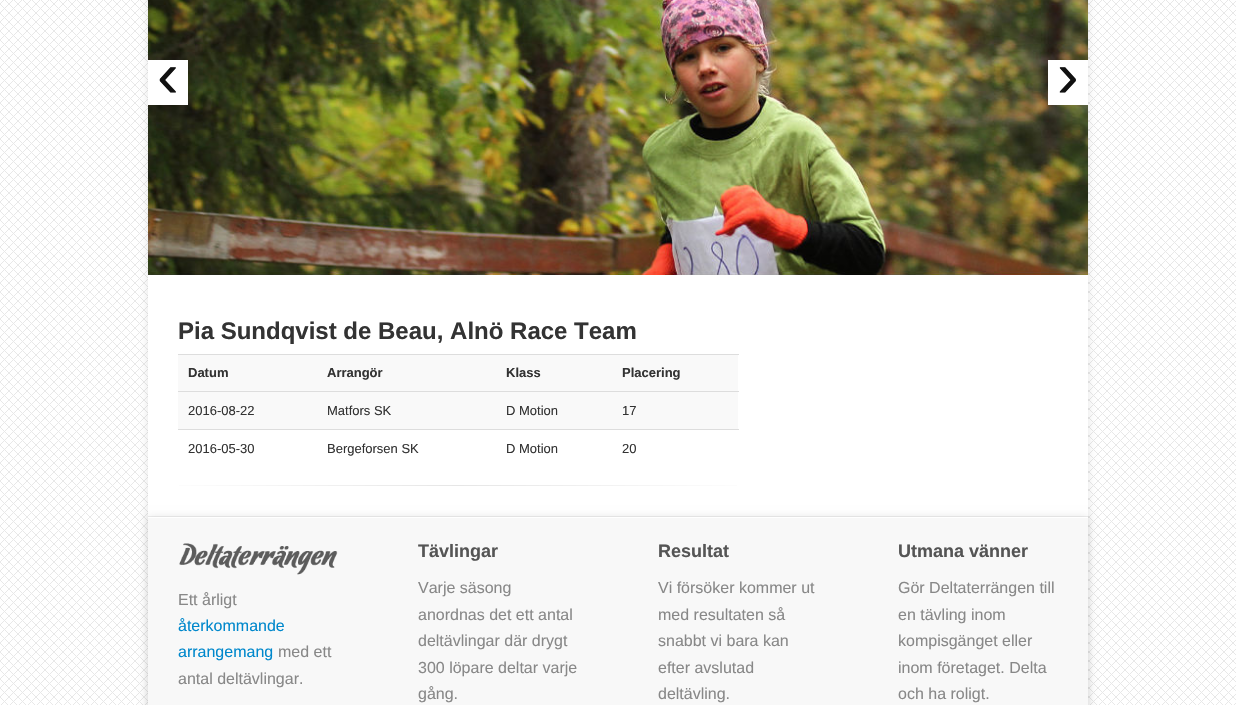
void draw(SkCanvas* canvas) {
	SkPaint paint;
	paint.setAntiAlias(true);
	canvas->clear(0xffffffff);
	canvas->drawImageRect(SkImages::DeferredFromEncodedData(SkData::MakeFromFileName("img1.png")), SkRect::MakeXYWH(0, 0, 1236, 705), SkSamplingOptions());
	paint.setColor(0x1a000000);
	paint.setMaskFilter(SkMaskFilter::MakeBlur(kNormal_SkBlurStyle, 4));
	canvas->drawRoundRect(SkRect::MakeXYWH(148, -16, 940, 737), 4, 4, paint);
	paint.setMaskFilter(nullptr);
	paint.setColor(0xffffffff);
	canvas->drawRect(SkRect::MakeXYWH(148, 275, 940, 241), paint);
	canvas->drawImageRect(SkImages::DeferredFromEncodedData(SkData::MakeFromFileName("img2.png")), SkRect::MakeXYWH(148, 0, 940, 275), SkSamplingOptions());
	canvas->drawRect(SkRect::MakeXYWH(148, 60, 40, 45), paint);
	SkFont f1(fontMgr->matchFamilyStyle("Liberation Sans", SkFontStyle::Normal()), 65);
	f1.setSubpixel(true);
	paint.setColor(0xff111111);
	canvas->drawString("‹", 157, 97, f1, paint);
	paint.setColor(0xffffffff);
	canvas->drawRect(SkRect::MakeXYWH(1048, 60, 40, 45), paint);
	paint.setColor(0xff111111);
	canvas->drawString("›", 1057, 97, f1, paint);
	paint.setColor(0xffeeeeee);
	canvas->drawRect(SkRect::MakeXYWH(148, 516, 940, 1), paint);
	SkFont f2(fontMgr->matchFamilyStyle("Liberation Sans", SkFontStyle::Bold()), 24);
	f2.setSubpixel(true);
	paint.setColor(0xff333333);
	canvas->drawString("Pia Sundqvist de Beau, Alnö Race Team", 178, 339, f2, paint);
	paint.setColor(0xfff9f9f9);
	canvas->drawRect(SkRect::MakeXYWH(178, 355, 560, 36), paint);
	SkFont f3(fontMgr->matchFamilyStyle("Liberation Sans", SkFontStyle::Bold()), 13);
	f3.setSubpixel(true);
	paint.setColor(0xff333333);
	canvas->drawString("Datum", 188, 377, f3, paint);
	canvas->drawString("Arrangör", 327, 377, f3, paint);
	canvas->drawString("Klass", 506, 377, f3, paint);
	paint.setColor(0xffdddddd);
	canvas->drawRect(SkRect::MakeXYWH(178, 354, 561, 1), paint);
	paint.setColor(0xff333333);
	canvas->drawString("Placering", 622, 377, f3, paint);
	paint.setColor(0xfff9f9f9);
	canvas->drawRect(SkRect::MakeXYWH(178, 392, 560, 37), paint);
	SkFont f4(fontMgr->matchFamilyStyle("Liberation Sans", SkFontStyle::Normal()), 13);
	f4.setSubpixel(true);
	paint.setColor(0xff333333);
	canvas->drawString("2016-08-22", 188, 415, f4, paint);
	canvas->drawString("Matfors SK", 327, 415, f4, paint);
	canvas->drawString("D Motion", 506, 415, f4, paint);
	paint.setColor(0xffdddddd);
	canvas->drawRect(SkRect::MakeXYWH(178, 391, 561, 1), paint);
	paint.setColor(0xff333333);
	canvas->drawString("17", 622, 415, f4, paint);
	canvas->drawString("2016-05-30", 188, 453, f4, paint);
	canvas->drawString("Bergeforsen SK", 327, 453, f4, paint);
	canvas->drawString("D Motion", 506, 453, f4, paint);
	paint.setColor(0xffdddddd);
	canvas->drawRect(SkRect::MakeXYWH(178, 429, 561, 1), paint);
	paint.setColor(0xff333333);
	canvas->drawString("20", 622, 453, f4, paint);
	{
		const SkColor colors[] = {0xffffffff, 0xffe6e6e6, 0xffffffff};
		const float stops[] = {0, 0.5, 1};
		const SkPoint ends[] = {{148, 486}, {768, 486}};
		paint.setShader(SkGradientShader::MakeLinear(ends, colors, stops, 3, SkTileMode::kClamp));
		paint.setAlpha(255);
	}
	canvas->drawRect(SkRect::MakeXYWH(179, 485, 558, 1), paint);
	paint.setShader(nullptr);
	paint.setColor(0x1a000000);
	paint.setMaskFilter(SkMaskFilter::MakeBlur(kNormal_SkBlurStyle, 4));
	canvas->drawRect(SkRect::MakeXYWH(148, 517, 940, 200), paint);
	paint.setMaskFilter(nullptr);
	paint.setColor(0xfff8f8f8);
	canvas->drawRect(SkRect::MakeXYWH(148, 518, 940, 187), paint);
	paint.setColor(0xffffffff);
	canvas->drawRect(SkRect::MakeXYWH(148, 517, 940, 1), paint);
	canvas->drawImageRect(SkImages::DeferredFromEncodedData(SkData::MakeFromFileName("img3.png")), SkRect::MakeXYWH(179, 543, 159, 32), SkSamplingOptions());
	SkFont f5(fontMgr->matchFamilyStyle("Liberation Sans", SkFontStyle::Normal()), 16);
	f5.setSubpixel(true);
	paint.setColor(0xff888888);
	canvas->drawString("Ett årligt", 178, 605, f5, paint);
	paint.setColor(0xff0088cc);
	canvas->drawString("återkommande", 178, 631, f5, paint);
	canvas->drawString("arrangemang", 178, 657, f5, paint);
	paint.setColor(0xff888888);
	canvas->drawString("med ett", 278, 657, f5, paint);
	canvas->drawString("antal deltävlingar.", 178, 684, f5, paint);
	SkFont f6(fontMgr->matchFamilyStyle("Liberation Sans", SkFontStyle::Bold()), 18);
	f6.setSubpixel(true);
	paint.setColor(0xff555555);
	canvas->drawString("Tävlingar", 418, 557, f6, paint);
	paint.setColor(0xff888888);
	canvas->drawString("Varje säsong", 418, 593, f5, paint);
	canvas->drawString("anordnas det ett antal", 418, 620, f5, paint);
	canvas->drawString("deltävlingar där drygt", 418, 646, f5, paint);
	canvas->drawString("300 löpare deltar varje", 418, 673, f5, paint);
	canvas->drawString("gång.", 418, 699, f5, paint);
	paint.setColor(0xff555555);
	canvas->drawString("Resultat", 658, 557, f6, paint);
	paint.setColor(0xff888888);
	canvas->drawString("Vi försöker kommer ut", 658, 593, f5, paint);
	canvas->drawString("med resultaten så", 658, 620, f5, paint);
	canvas->drawString("snabbt vi bara kan", 658, 646, f5, paint);
	canvas->drawString("efter avslutad", 658, 673, f5, paint);
	canvas->drawString("deltävling.", 658, 699, f5, paint);
	paint.setColor(0xff555555);
	canvas->drawString("Utmana vänner", 898, 557, f6, paint);
	paint.setColor(0xff888888);
	canvas->drawString("Gör Deltaterrängen till", 898, 593, f5, paint);
	canvas->drawString("en tävling inom", 898, 620, f5, paint);
	canvas->drawString("kompisgänget eller", 898, 646, f5, paint);
	canvas->drawString("inom företaget. Delta", 898, 673, f5, paint);
	canvas->drawString("och ha roligt.", 898, 699, f5, paint);
}
